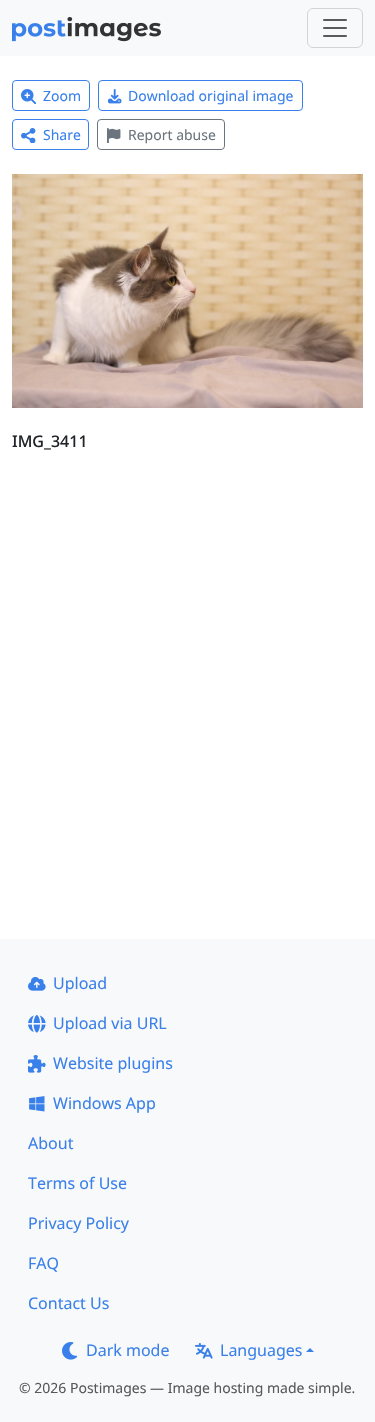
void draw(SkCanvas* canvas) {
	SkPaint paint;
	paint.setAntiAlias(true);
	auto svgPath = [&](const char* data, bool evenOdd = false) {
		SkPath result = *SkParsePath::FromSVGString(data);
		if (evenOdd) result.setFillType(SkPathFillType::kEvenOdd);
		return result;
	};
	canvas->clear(0xffffffff);
	paint.setColor(0xfff8f9fa);
	canvas->drawRect(SkRect::MakeXYWH(0, 0, 375, 56), paint);
	canvas->drawImageRect(SkImages::DeferredFromEncodedData(SkData::MakeFromFileName("img1.png")), SkRect::MakeXYWH(12, 17, 149, 25), SkSamplingOptions());
	paint.setStroke(true);
	paint.setStrokeWidth(1);
	paint.setColor(0xffd3d4d5);
	canvas->drawRoundRect(SkRect::MakeXYWH(307.5, 8.5, 55, 39), 5.5, 5.5, paint);
	canvas->drawImageRect(SkImages::DeferredFromEncodedData(SkData::MakeFromFileName("img2.png")), SkRect::MakeXYWH(323, 19, 24, 18), SkSamplingOptions());
	paint.setColor(0xff3a80ea);
	canvas->drawRoundRect(SkRect::MakeXYWH(12.5, 80.5, 77, 30), 3.5, 3.5, paint);
	canvas->drawImageRect(SkImages::DeferredFromEncodedData(SkData::MakeFromFileName("img3.png")), SkRect::MakeXYWH(21, 89, 15, 15), SkSamplingOptions());
	SkFont f1(fontMgr->matchFamilyStyle("Noto Sans", SkFontStyle::Normal()), 14);
	f1.setSubpixel(true);
	paint.setStroke(false);
	canvas->drawString("Zoom", 43, 101, f1, paint);
	paint.setStroke(true);
	canvas->drawRoundRect(SkRect::MakeXYWH(98.5, 80.5, 204, 30), 3.5, 3.5, paint);
	canvas->drawImageRect(SkImages::DeferredFromEncodedData(SkData::MakeFromFileName("img4.png")), SkRect::MakeXYWH(107, 89, 15, 15), SkSamplingOptions());
	paint.setStroke(false);
	canvas->drawString("Download original image", 128, 101, f1, paint);
	paint.setStroke(true);
	canvas->drawRoundRect(SkRect::MakeXYWH(12.5, 119.5, 76, 30), 3.5, 3.5, paint);
	canvas->drawImageRect(SkImages::DeferredFromEncodedData(SkData::MakeFromFileName("img5.png")), SkRect::MakeXYWH(21, 128, 15, 15), SkSamplingOptions());
	paint.setStroke(false);
	canvas->drawString("Share", 43, 140, f1, paint);
	paint.setStroke(true);
	paint.setColor(0xff6c757d);
	canvas->drawRoundRect(SkRect::MakeXYWH(97.5, 119.5, 127, 30), 3.5, 3.5, paint);
	canvas->drawImageRect(SkImages::DeferredFromEncodedData(SkData::MakeFromFileName("img6.png")), SkRect::MakeXYWH(106, 128, 15, 15), SkSamplingOptions());
	paint.setStroke(false);
	canvas->drawString("Report abuse", 128, 140, f1, paint);
	canvas->drawImageRect(SkImages::DeferredFromEncodedData(SkData::MakeFromFileName("img7.png")), SkRect::MakeXYWH(12, 174, 351, 234), SkSamplingOptions());
	SkFont f2(fontMgr->matchFamilyStyle("Noto Sans", SkFontStyle(500, SkFontStyle::kNormal_Width, SkFontStyle::kUpright_Slant)), 16);
	f2.setSubpixel(true);
	paint.setColor(0xff212529);
	canvas->drawString("IMG_3411", 12, 447, f2, paint);
	paint.setColor(0xfff8f9fa);
	canvas->drawRect(SkRect::MakeXYWH(0, 939, 375, 483), paint);
	canvas->drawImageRect(SkImages::DeferredFromEncodedData(SkData::MakeFromFileName("img8.png")), SkRect::MakeXYWH(28, 977, 18, 14), SkSamplingOptions());
	SkFont f3(fontMgr->matchFamilyStyle("Noto Sans", SkFontStyle::Normal()), 16);
	f3.setSubpixel(true);
	paint.setColor(0xff3a80ea);
	canvas->drawString("Upload", 53, 989, f3, paint);
	canvas->drawImageRect(SkImages::DeferredFromEncodedData(SkData::MakeFromFileName("img9.png")), SkRect::MakeXYWH(28, 1015, 18, 18), SkSamplingOptions());
	canvas->drawString("Upload via URL", 53, 1029, f3, paint);
	canvas->drawImageRect(SkImages::DeferredFromEncodedData(SkData::MakeFromFileName("img10.png")), SkRect::MakeXYWH(28, 1055, 18, 18), SkSamplingOptions());
	canvas->drawString("Website plugins", 53, 1069, f3, paint);
	canvas->drawImageRect(SkImages::DeferredFromEncodedData(SkData::MakeFromFileName("img11.png")), SkRect::MakeXYWH(29, 1096, 16, 16), SkSamplingOptions());
	canvas->drawString("Windows App", 53, 1109, f3, paint);
	canvas->drawString("About", 28, 1149, f3, paint);
	canvas->drawString("Terms of Use", 28, 1189, f3, paint);
	canvas->drawString("Privacy Policy", 28, 1229, f3, paint);
	canvas->drawString("FAQ", 28, 1269, f3, paint);
	canvas->drawString("Contact Us", 28, 1309, f3, paint);
	canvas->drawImageRect(SkImages::DeferredFromEncodedData(SkData::MakeFromFileName("img12.png")), SkRect::MakeXYWH(62, 1342, 16, 18), SkSamplingOptions());
	canvas->drawString("Dark mode", 86, 1356, f3, paint);
	canvas->drawImageRect(SkImages::DeferredFromEncodedData(SkData::MakeFromFileName("img13.png")), SkRect::MakeXYWH(195, 1343, 18, 16), SkSamplingOptions());
	canvas->drawString("Languages", 220, 1356, f3, paint);
	canvas->drawPath(svgPath("M314 1352H306L310 1348Z"), paint);
	paint.setColor(0xff575a5d);
	canvas->drawString("© 2026 Postimages — Image hosting made simple.", 19, 1393, f1, paint);
}
